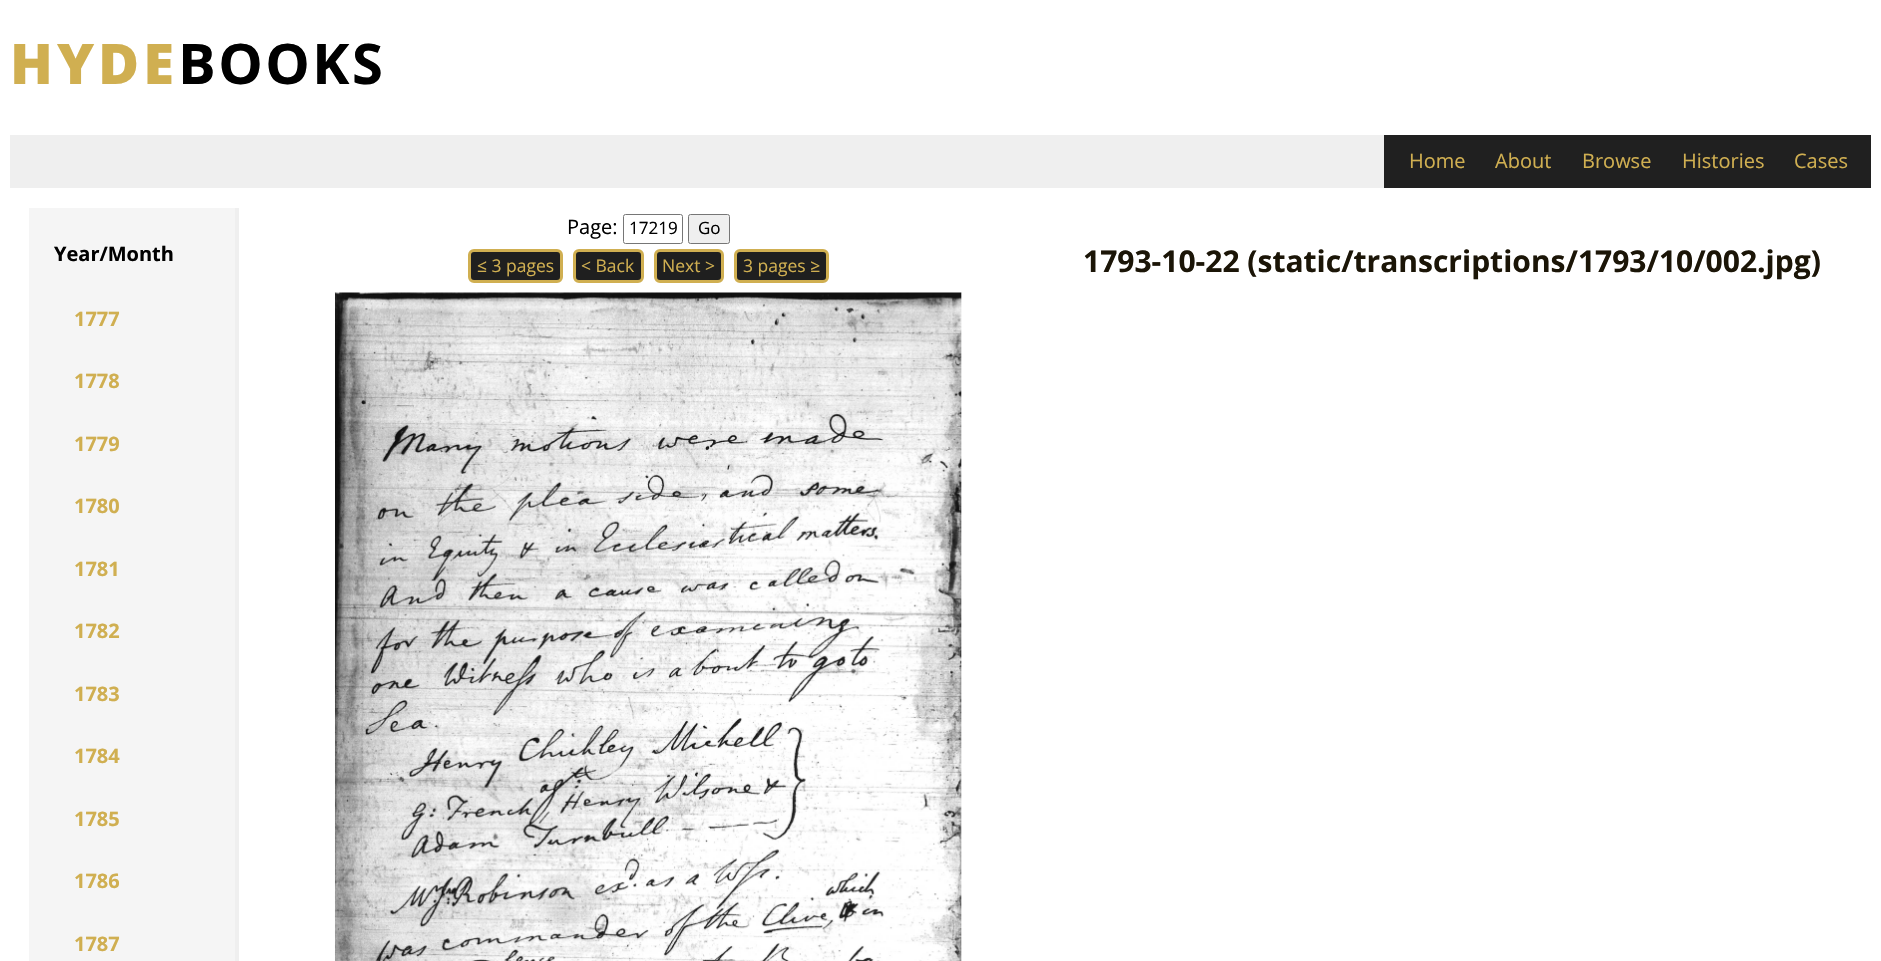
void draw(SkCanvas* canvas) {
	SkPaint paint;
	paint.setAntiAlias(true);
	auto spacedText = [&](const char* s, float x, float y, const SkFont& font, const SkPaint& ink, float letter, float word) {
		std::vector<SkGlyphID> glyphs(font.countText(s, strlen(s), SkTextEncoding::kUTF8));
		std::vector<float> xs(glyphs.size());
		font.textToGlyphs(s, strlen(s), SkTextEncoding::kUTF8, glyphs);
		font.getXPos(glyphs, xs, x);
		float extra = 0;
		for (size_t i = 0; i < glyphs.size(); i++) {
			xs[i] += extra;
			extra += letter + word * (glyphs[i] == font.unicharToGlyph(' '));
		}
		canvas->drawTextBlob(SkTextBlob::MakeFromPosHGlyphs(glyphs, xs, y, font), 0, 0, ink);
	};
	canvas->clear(0xffffffff);
	SkFont f1(fontMgr->matchFamilyStyle("Open Sans", SkFontStyle(800, SkFontStyle::kNormal_Width, SkFontStyle::kUpright_Slant)), 56);
	f1.setSubpixel(true);
	paint.setColor(0xffd0af51);
	spacedText("HYDE", 10, 84, f1, paint, 4, 0);
	SkFont f2(fontMgr->matchFamilyStyle("Open Sans", SkFontStyle::Bold()), 56);
	f2.setSubpixel(true);
	paint.setColor(0xff000000);
	spacedText("BOOKS", 178, 84, f2, paint, 2.5, 0);
	paint.setColor(0xffefefef);
	canvas->drawRect(SkRect::MakeXYWH(10, 135, 1374, 53), paint);
	paint.setColor(0xff202020);
	canvas->drawRect(SkRect::MakeXYWH(1384, 135, 487, 53), paint);
	SkFont f3(fontMgr->matchFamilyStyle("Open Sans", SkFontStyle::Normal()), 20);
	f3.setSubpixel(true);
	paint.setColor(0xffd0af51);
	canvas->drawString("Home", 1409, 168, f3, paint);
	canvas->drawString("About", 1495, 168, f3, paint);
	canvas->drawString("Browse", 1582, 168, f3, paint);
	canvas->drawString("Histories", 1682, 168, f3, paint);
	canvas->drawString("Cases", 1794, 168, f3, paint);
	paint.setColor(0xfff5f5f5);
	canvas->drawRect(SkRect::MakeXYWH(29, 208, 206, 753), paint);
	paint.setColor(0xffefefef);
	canvas->drawRect(SkRect::MakeXYWH(235, 208, 4, 753), paint);
	SkFont f4(fontMgr->matchFamilyStyle("Open Sans", SkFontStyle::Bold()), 20);
	f4.setSubpixel(true);
	paint.setColor(0xff000000);
	canvas->drawString("Year/Month", 54, 261, f4, paint);
	paint.setColor(0xffd0af51);
	canvas->drawString("1777", 74, 326, f4, paint);
	canvas->drawString("1778", 74, 388, f4, paint);
	canvas->drawString("1779", 74, 451, f4, paint);
	canvas->drawString("1780", 74, 513, f4, paint);
	canvas->drawString("1781", 74, 576, f4, paint);
	canvas->drawString("1782", 74, 638, f4, paint);
	canvas->drawString("1783", 74, 701, f4, paint);
	canvas->drawString("1784", 74, 763, f4, paint);
	canvas->drawString("1785", 74, 826, f4, paint);
	canvas->drawString("1786", 74, 888, f4, paint);
	canvas->drawString("1787", 74, 951, f4, paint);
	paint.setColor(0xff000000);
	canvas->drawString("Page:", 567, 234, f3, paint);
	paint.setStroke(true);
	paint.setStrokeWidth(1);
	paint.setColor(0xff767676);
	canvas->drawRoundRect(SkRect::MakeXYWH(623.5, 214.5, 59, 29), 2, 2, paint);
	SkFont f5(fontMgr->matchFamilyStyle("Open Sans", SkFontStyle::Normal()), 17);
	f5.setSubpixel(true);
	paint.setStroke(false);
	paint.setColor(0xff000000);
	canvas->drawString("17219", 629, 234, f5, paint);
	paint.setColor(0xffefefef);
	canvas->drawRoundRect(SkRect::MakeXYWH(688.5, 214.5, 41, 29), 2, 2, paint);
	paint.setStroke(true);
	paint.setColor(0xff767676);
	canvas->drawRoundRect(SkRect::MakeXYWH(688.5, 214.5, 41, 29), 2, 2, paint);
	paint.setStroke(false);
	paint.setColor(0xff000000);
	canvas->drawString("Go", 698, 234, f5, paint);
	paint.setColor(0xff1f1f1f);
	canvas->drawRoundRect(SkRect::MakeXYWH(469.5, 250.5, 92, 31), 4.5, 4.5, paint);
	paint.setStroke(true);
	paint.setStrokeWidth(3);
	paint.setColor(0xffd0af51);
	canvas->drawRoundRect(SkRect::MakeXYWH(469.5, 250.5, 92, 31), 4.5, 4.5, paint);
	SkFont f6(fontMgr->matchFamilyStyle("Open Sans", SkFontStyle::Normal()), 17.5);
	f6.setSubpixel(true);
	paint.setStroke(false);
	canvas->drawString("≤ 3 pages", 477, 272, f6, paint);
	paint.setColor(0xff1f1f1f);
	canvas->drawRoundRect(SkRect::MakeXYWH(574.5, 250.5, 68, 31), 4.5, 4.5, paint);
	paint.setStroke(true);
	paint.setColor(0xffd0af51);
	canvas->drawRoundRect(SkRect::MakeXYWH(574.5, 250.5, 68, 31), 4.5, 4.5, paint);
	paint.setStroke(false);
	canvas->drawString("< Back", 581, 272, f6, paint);
	paint.setColor(0xff1f1f1f);
	canvas->drawRoundRect(SkRect::MakeXYWH(655.5, 250.5, 67, 31), 4.5, 4.5, paint);
	paint.setStroke(true);
	paint.setColor(0xffd0af51);
	canvas->drawRoundRect(SkRect::MakeXYWH(655.5, 250.5, 67, 31), 4.5, 4.5, paint);
	paint.setStroke(false);
	canvas->drawString("Next >", 662, 272, f6, paint);
	paint.setColor(0xff1f1f1f);
	canvas->drawRoundRect(SkRect::MakeXYWH(735.5, 250.5, 92, 31), 4.5, 4.5, paint);
	paint.setStroke(true);
	paint.setColor(0xffd0af51);
	canvas->drawRoundRect(SkRect::MakeXYWH(735.5, 250.5, 92, 31), 4.5, 4.5, paint);
	paint.setStroke(false);
	canvas->drawString("3 pages ≥", 743, 272, f6, paint);
	canvas->drawImageRect(SkImages::DeferredFromEncodedData(SkData::MakeFromFileName("img1.png")), SkRect::MakeXYWH(334, 292, 628, 669), SkSamplingOptions());
	SkFont f7(fontMgr->matchFamilyStyle("Open Sans", SkFontStyle::Bold()), 30);
	f7.setSubpixel(true);
	paint.setColor(0xff1b1507);
	canvas->drawString("1793-10-22 (static/transcriptions/1793/10/002.jpg)", 1083, 272, f7, paint);
}
